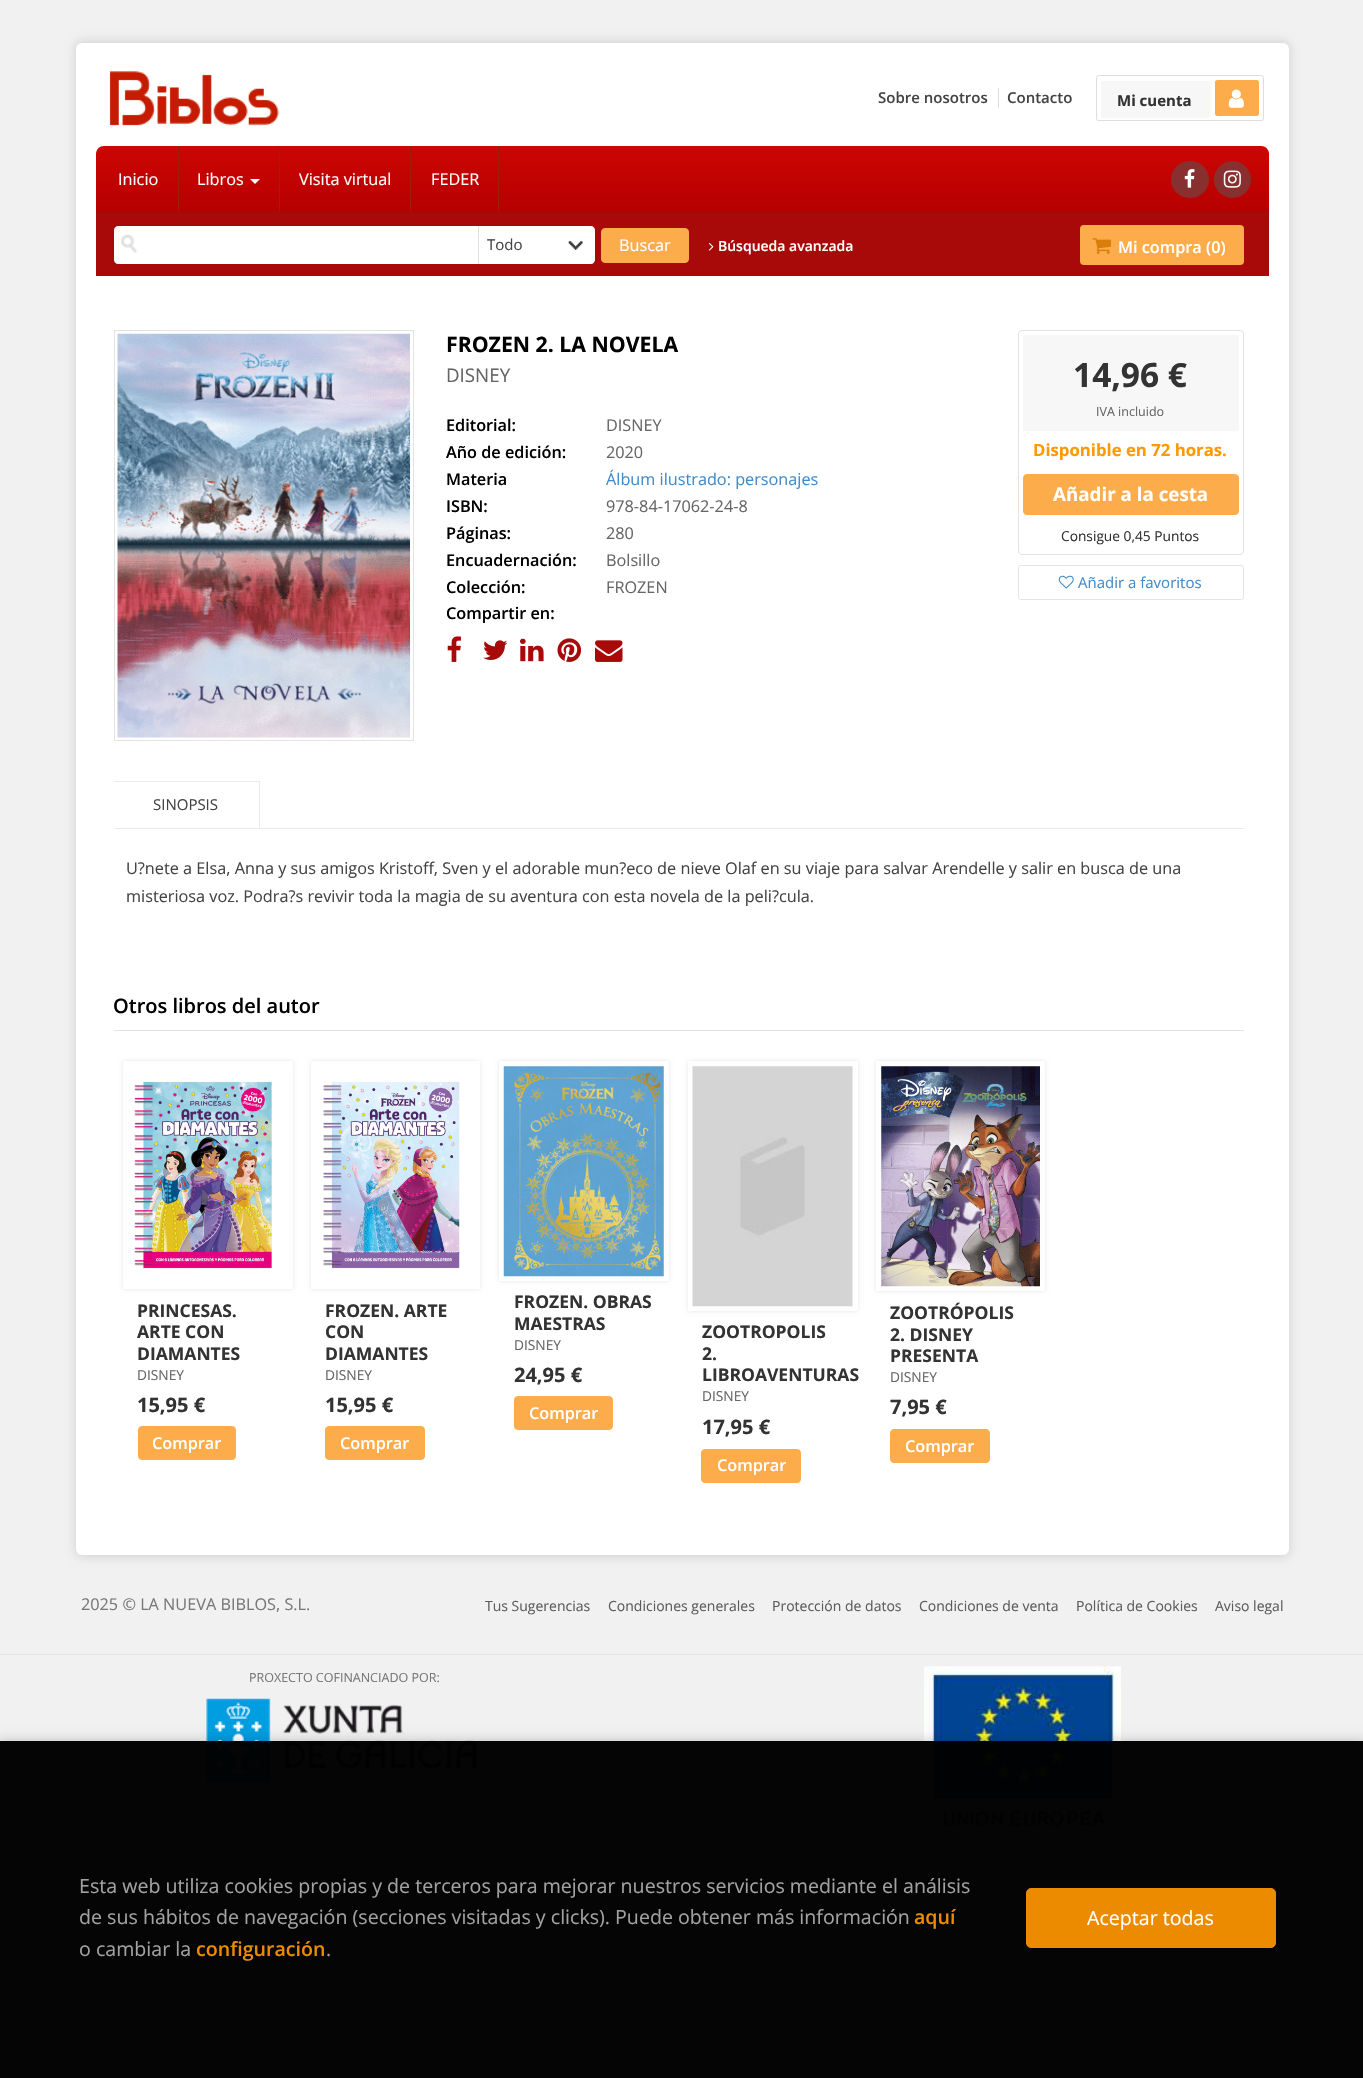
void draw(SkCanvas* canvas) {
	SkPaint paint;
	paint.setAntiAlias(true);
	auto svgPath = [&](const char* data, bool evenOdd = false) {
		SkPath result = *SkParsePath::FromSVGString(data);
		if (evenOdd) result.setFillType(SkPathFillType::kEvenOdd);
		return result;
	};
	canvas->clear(0xfff1f1f1);
	paint.setColor(0x1a000000);
	paint.setMaskFilter(SkMaskFilter::MakeBlur(kNormal_SkBlurStyle, 4.5));
	canvas->drawRoundRect(SkRect::MakeXYWH(74, 40, 1217, 1518), 9, 9, paint);
	paint.setMaskFilter(nullptr);
	paint.setColor(0xffffffff);
	canvas->drawRoundRect(SkRect::MakeXYWH(76, 43, 1213, 1512), 6, 6, paint);
	canvas->drawImageRect(SkImages::DeferredFromEncodedData(SkData::MakeFromFileName("img1.png")), SkRect::MakeXYWH(109, 71, 170, 55), SkSamplingOptions());
	paint.setColor(0xffdddddd);
	canvas->drawRect(SkRect::MakeXYWH(998, 88, 1, 20), paint);
	SkFont f1(fontMgr->matchFamilyStyle("Open Sans", SkFontStyle(600, SkFontStyle::kNormal_Width, SkFontStyle::kUpright_Slant)), 15);
	f1.setSubpixel(true);
	paint.setColor(0xff444444);
	canvas->drawString("Sobre nosotros", 878, 103, f1, paint);
	canvas->drawString("Contacto", 1007, 103, f1, paint);
	paint.setStroke(true);
	paint.setStrokeWidth(1);
	paint.setColor(0xffdddddd);
	canvas->drawRoundRect(SkRect::MakeXYWH(1096.5, 75.5, 167, 45), 2, 2, paint);
	paint.setStroke(false);
	paint.setColor(0xfff7f7f7);
	canvas->drawRoundRect(SkRect::MakeXYWH(1101, 81, 109, 37), 2.5, 2.5, paint);
	SkFont f2(fontMgr->matchFamilyStyle("Open Sans", SkFontStyle::Bold()), 15);
	f2.setSubpixel(true);
	paint.setColor(0xff333333);
	canvas->drawString("Mi cuenta", 1117, 106, f2, paint);
	paint.setColor(0xfffcac4a);
	canvas->drawRoundRect(SkRect::MakeXYWH(1215, 80, 44, 36), 2.5, 2.5, paint);
	canvas->drawImageRect(SkImages::DeferredFromEncodedData(SkData::MakeFromFileName("img2.png")), SkRect::MakeXYWH(1228, 89, 16, 19), SkSamplingOptions());
	{
		const SkColor colors[] = {0xffcc0603, 0xffb60000};
		const float stops[] = {0, 1};
		const SkPoint ends[] = {{683, 146}, {683, 211}};
		paint.setShader(SkGradientShader::MakeLinear(ends, colors, stops, 2, SkTileMode::kClamp));
		paint.setAlpha(255);
	}
	canvas->drawPath(svgPath("M104 146H1261C1265.5 146 1269 149.5 1269 154V211H96V154C96 149.5 99.5 146 104 146Z"), paint);
	paint.setShader(nullptr);
	paint.setColor(0xff9f2001);
	canvas->drawRect(SkRect::MakeXYWH(178, 146, 1, 65), paint);
	SkFont f3(fontMgr->matchFamilyStyle("Open Sans", SkFontStyle::Normal()), 16.25);
	f3.setSubpixel(true);
	paint.setColor(0xffffffff);
	canvas->drawString("Inicio", 118, 185, f3, paint);
	paint.setColor(0xff9f2001);
	canvas->drawRect(SkRect::MakeXYWH(279, 146, 1, 65), paint);
	paint.setColor(0xffffffff);
	canvas->drawString("Libros", 197, 185, f3, paint);
	canvas->drawPath(svgPath("M250 179H260L255 184Z"), paint);
	paint.setColor(0xff9f2001);
	canvas->drawRect(SkRect::MakeXYWH(410, 146, 1, 65), paint);
	paint.setColor(0xffffffff);
	canvas->drawString("Visita virtual", 299, 185, f3, paint);
	paint.setColor(0xff9f2001);
	canvas->drawRect(SkRect::MakeXYWH(498, 146, 1, 65), paint);
	paint.setColor(0xffffffff);
	canvas->drawString("FEDER", 431, 185, f3, paint);
	paint.setColor(0xff882f2f);
	canvas->drawRoundRect(SkRect::MakeXYWH(1171, 161, 38, 37), 18.5, 18.5, paint);
	canvas->drawImageRect(SkImages::DeferredFromEncodedData(SkData::MakeFromFileName("img3.png")), SkRect::MakeXYWH(1184, 169, 11, 19), SkSamplingOptions());
	canvas->drawCircle(1232.5, 179.5, 18.5, paint);
	canvas->drawImageRect(SkImages::DeferredFromEncodedData(SkData::MakeFromFileName("img4.png")), SkRect::MakeXYWH(1223, 170, 18, 18), SkSamplingOptions());
	paint.setColor(0xffa80909);
	canvas->drawRect(SkRect::MakeXYWH(96, 211, 1173, 65), paint);
	paint.setColor(0xffffffff);
	canvas->drawPath(svgPath("M118 226H478V264H118C116 264 114 262 114 260V230C114 228 116 226 118 226Z"), paint);
	canvas->drawImageRect(SkImages::DeferredFromEncodedData(SkData::MakeFromFileName("img5.png")), SkRect::MakeXYWH(121, 235, 16, 18), SkSamplingOptions());
	canvas->drawPath(svgPath("M478 226H591C593 226 595 228 595 230V260C595 262 593 264 591 264H478Z"), paint);
	canvas->drawImageRect(SkImages::DeferredFromEncodedData(SkData::MakeFromFileName("img6.png")), SkRect::MakeXYWH(568, 241, 15, 9), SkSamplingOptions());
	paint.setColor(0xffe0e0e0);
	canvas->drawRect(SkRect::MakeXYWH(478, 226, 1, 38), paint);
	SkFont f4(fontMgr->matchFamilyStyle("Open Sans", SkFontStyle::Normal()), 15);
	f4.setSubpixel(true);
	paint.setColor(0xff444444);
	canvas->drawString("Todo", 487, 250, f4, paint);
	paint.setColor(0xfffcac4a);
	canvas->drawRoundRect(SkRect::MakeXYWH(601.5, 228.5, 87, 34), 3.5, 3.5, paint);
	paint.setStroke(true);
	canvas->drawRoundRect(SkRect::MakeXYWH(601.5, 228.5, 87, 34), 3.5, 3.5, paint);
	paint.setStroke(false);
	paint.setColor(0xffffffff);
	canvas->drawString("Buscar", 619, 251, f3, paint);
	canvas->drawImageRect(SkImages::DeferredFromEncodedData(SkData::MakeFromFileName("img7.png")), SkRect::MakeXYWH(708, 242, 6, 9), SkSamplingOptions());
	SkFont f5(fontMgr->matchFamilyStyle("Open Sans", SkFontStyle(600, SkFontStyle::kNormal_Width, SkFontStyle::kUpright_Slant)), 14);
	f5.setSubpixel(true);
	canvas->drawString("Búsqueda avanzada", 718, 251, f5, paint);
	paint.setColor(0xfffcac4a);
	canvas->drawRoundRect(SkRect::MakeXYWH(1080, 225, 164, 40), 4, 4, paint);
	canvas->drawImageRect(SkImages::DeferredFromEncodedData(SkData::MakeFromFileName("img8.png")), SkRect::MakeXYWH(1092, 238, 20, 16), SkSamplingOptions());
	SkFont f6(fontMgr->matchFamilyStyle("Open Sans", SkFontStyle(600, SkFontStyle::kNormal_Width, SkFontStyle::kUpright_Slant)), 16.25);
	f6.setSubpixel(true);
	paint.setColor(0xffffffff);
	canvas->drawString("Mi compra (0)", 1118, 253, f6, paint);
	paint.setStroke(true);
	paint.setColor(0xffe3e3e3);
	canvas->drawRect(SkRect::MakeXYWH(114.5, 330.5, 299, 410), paint);
	canvas->drawImageRect(SkImages::DeferredFromEncodedData(SkData::MakeFromFileName("img9.png")), SkRect::MakeXYWH(117, 333, 293, 405), SkSamplingOptions());
	SkFont f7(fontMgr->matchFamilyStyle("Open Sans", SkFontStyle::Bold()), 21.25);
	f7.setSubpixel(true);
	paint.setStroke(false);
	paint.setColor(0xff000000);
	canvas->drawString("FROZEN 2. LA NOVELA", 446, 352, f7, paint);
	SkFont f8(fontMgr->matchFamilyStyle("Open Sans", SkFontStyle::Normal()), 18.75);
	f8.setSubpixel(true);
	paint.setColor(0xff666666);
	canvas->drawString("DISNEY", 446, 382, f8, paint);
	paint.setColor(0xff000000);
	canvas->drawString("Editorial:", 446, 431, f6, paint);
	paint.setColor(0xff666666);
	canvas->drawString("DISNEY", 606, 431, f3, paint);
	paint.setColor(0xff000000);
	canvas->drawString("Año de edición:", 446, 458, f6, paint);
	paint.setColor(0xff666666);
	canvas->drawString("2020", 606, 458, f3, paint);
	paint.setColor(0xff000000);
	canvas->drawString("Materia", 446, 485, f6, paint);
	paint.setColor(0xff428bca);
	canvas->drawString("Álbum ilustrado: personajes", 606, 485, f3, paint);
	paint.setColor(0xff000000);
	canvas->drawString("ISBN:", 446, 512, f6, paint);
	paint.setColor(0xff666666);
	canvas->drawString("978-84-17062-24-8", 606, 512, f3, paint);
	paint.setColor(0xff000000);
	canvas->drawString("Páginas:", 446, 539, f6, paint);
	paint.setColor(0xff666666);
	canvas->drawString("280", 606, 539, f3, paint);
	paint.setColor(0xff000000);
	canvas->drawString("Encuadernación:", 446, 566, f6, paint);
	paint.setColor(0xff666666);
	canvas->drawString("Bolsillo", 606, 566, f3, paint);
	paint.setColor(0xff000000);
	canvas->drawString("Colección:", 446, 593, f6, paint);
	paint.setColor(0xff666666);
	canvas->drawString("FROZEN", 606, 593, f3, paint);
	paint.setColor(0xff000000);
	canvas->drawString("Compartir en:", 446, 619, f6, paint);
	canvas->drawImageRect(SkImages::DeferredFromEncodedData(SkData::MakeFromFileName("img10.png")), SkRect::MakeXYWH(447, 636, 14, 26), SkSamplingOptions());
	canvas->drawImageRect(SkImages::DeferredFromEncodedData(SkData::MakeFromFileName("img11.png")), SkRect::MakeXYWH(483, 640, 25, 20), SkSamplingOptions());
	canvas->drawImageRect(SkImages::DeferredFromEncodedData(SkData::MakeFromFileName("img12.png")), SkRect::MakeXYWH(520, 638, 24, 24), SkSamplingOptions());
	canvas->drawImageRect(SkImages::DeferredFromEncodedData(SkData::MakeFromFileName("img13.png")), SkRect::MakeXYWH(557, 638, 25, 24), SkSamplingOptions());
	canvas->drawImageRect(SkImages::DeferredFromEncodedData(SkData::MakeFromFileName("img14.png")), SkRect::MakeXYWH(595, 640, 28, 22), SkSamplingOptions());
	paint.setStroke(true);
	paint.setColor(0xffe3e3e3);
	canvas->drawRoundRect(SkRect::MakeXYWH(1018.5, 330.5, 225, 224), 3.5, 3.5, paint);
	paint.setStroke(false);
	paint.setColor(0xfff7f7f7);
	canvas->drawRoundRect(SkRect::MakeXYWH(1023, 335, 216, 96), 2.5, 2.5, paint);
	SkFont f9(fontMgr->matchFamilyStyle("Open Sans", SkFontStyle::Bold()), 33.5);
	f9.setSubpixel(true);
	paint.setColor(0xff333333);
	canvas->drawString("14,96 €", 1073, 387, f9, paint);
	SkFont f10(fontMgr->matchFamilyStyle("Open Sans", SkFontStyle::Normal()), 12.5);
	f10.setSubpixel(true);
	paint.setColor(0xff666666);
	canvas->drawString("IVA incluido", 1096, 416, f10, paint);
	SkFont f11(fontMgr->matchFamilyStyle("Open Sans", SkFontStyle::Bold()), 16.75);
	f11.setSubpixel(true);
	paint.setColor(0xffff9900);
	canvas->drawString("Disponible en 72 horas.", 1033, 456, f11, paint);
	paint.setColor(0xfffcac4a);
	canvas->drawRoundRect(SkRect::MakeXYWH(1023.5, 474.5, 215, 40), 3.5, 3.5, paint);
	paint.setStroke(true);
	canvas->drawRoundRect(SkRect::MakeXYWH(1023.5, 474.5, 215, 40), 3.5, 3.5, paint);
	SkFont f12(fontMgr->matchFamilyStyle("Open Sans", SkFontStyle::Bold()), 18.75);
	f12.setSubpixel(true);
	paint.setStroke(false);
	paint.setColor(0xffffffff);
	canvas->drawString("Añadir a la cesta", 1053, 501, f12, paint);
	SkFont f13(fontMgr->matchFamilyStyle("Open Sans", SkFontStyle::Normal()), 13.75);
	f13.setSubpixel(true);
	paint.setColor(0xff333333);
	canvas->drawString("Consigue 0,45 Puntos", 1061, 541, f13, paint);
	paint.setStroke(true);
	paint.setColor(0xffe3e3e3);
	canvas->drawRoundRect(SkRect::MakeXYWH(1018.5, 565.5, 225, 34), 2, 2, paint);
	canvas->drawImageRect(SkImages::DeferredFromEncodedData(SkData::MakeFromFileName("img15.png")), SkRect::MakeXYWH(1058, 575, 16, 14), SkSamplingOptions());
	paint.setStroke(false);
	paint.setColor(0xff428bca);
	canvas->drawString("Añadir a favoritos", 1078, 588, f4, paint);
	paint.setColor(0xffeaeaea);
	canvas->drawRect(SkRect::MakeXYWH(114, 828, 1130, 1), paint);
	canvas->drawRect(SkRect::MakeXYWH(114, 781, 146, 1), paint);
	canvas->drawRect(SkRect::MakeXYWH(259, 781, 1, 47), paint);
	paint.setColor(0xff444444);
	canvas->drawString("SINOPSIS", 153, 810, f4, paint);
	canvas->drawString("U?nete a Elsa, Anna y sus amigos Kristoff, Sven y el adorable mun?eco de nieve Olaf en su viaje para salvar Arendelle y salir en busca de una", 126, 874, f3, paint);
	canvas->drawString("misteriosa voz. Podra?s revivir toda la magia de su aventura con esta novela de la peli?cula.", 126, 902, f3, paint);
	paint.setColor(0xffe4e3e2);
	canvas->drawRect(SkRect::MakeXYWH(114, 1030, 1130, 1), paint);
	SkFont f14(fontMgr->matchFamilyStyle("Open Sans", SkFontStyle(600, SkFontStyle::kNormal_Width, SkFontStyle::kUpright_Slant)), 20);
	f14.setSubpixel(true);
	paint.setColor(0xff000000);
	canvas->drawString("Otros libros del autor", 113, 1013, f14, paint);
	paint.setColor(0x1a000000);
	paint.setMaskFilter(SkMaskFilter::MakeBlur(kNormal_SkBlurStyle, 2));
	canvas->drawRect(SkRect::MakeXYWH(123, 1061, 170, 228), paint);
	paint.setMaskFilter(nullptr);
	paint.setColor(0xffffffff);
	canvas->drawRect(SkRect::MakeXYWH(123, 1061, 170, 228), paint);
	canvas->drawImageRect(SkImages::DeferredFromEncodedData(SkData::MakeFromFileName("img16.png")), SkRect::MakeXYWH(134, 1081, 139, 188), SkSamplingOptions());
	SkFont f15(fontMgr->matchFamilyStyle("Open Sans", SkFontStyle::Bold()), 17.5);
	f15.setSubpixel(true);
	paint.setColor(0xff333333);
	canvas->drawString("PRINCESAS.", 137, 1317, f15, paint);
	canvas->drawString("ARTE CON", 137, 1338, f15, paint);
	canvas->drawString("DIAMANTES", 137, 1360, f15, paint);
	paint.setColor(0xff666666);
	canvas->drawString("DISNEY", 137, 1380, f13, paint);
	SkFont f16(fontMgr->matchFamilyStyle("Open Sans", SkFontStyle::Bold()), 20);
	f16.setSubpixel(true);
	paint.setColor(0xff333333);
	canvas->drawString("15,95 €", 137, 1412, f16, paint);
	paint.setColor(0xfffcac4a);
	canvas->drawRoundRect(SkRect::MakeXYWH(138.5, 1426.5, 97, 33), 3.5, 3.5, paint);
	paint.setStroke(true);
	canvas->drawRoundRect(SkRect::MakeXYWH(138.5, 1426.5, 97, 33), 3.5, 3.5, paint);
	paint.setStroke(false);
	paint.setColor(0xffffffff);
	canvas->drawString("Comprar", 152, 1449, f6, paint);
	paint.setColor(0x1a000000);
	paint.setMaskFilter(SkMaskFilter::MakeBlur(kNormal_SkBlurStyle, 2));
	canvas->drawRect(SkRect::MakeXYWH(311, 1061, 169, 228), paint);
	paint.setMaskFilter(nullptr);
	paint.setColor(0xffffffff);
	canvas->drawRect(SkRect::MakeXYWH(311, 1061, 169, 228), paint);
	canvas->drawImageRect(SkImages::DeferredFromEncodedData(SkData::MakeFromFileName("img17.png")), SkRect::MakeXYWH(323, 1081, 137, 188), SkSamplingOptions());
	paint.setColor(0xff333333);
	canvas->drawString("FROZEN. ARTE", 325, 1317, f15, paint);
	canvas->drawString("CON", 325, 1338, f15, paint);
	canvas->drawString("DIAMANTES", 325, 1360, f15, paint);
	paint.setColor(0xff666666);
	canvas->drawString("DISNEY", 325, 1380, f13, paint);
	paint.setColor(0xff333333);
	canvas->drawString("15,95 €", 325, 1412, f16, paint);
	paint.setColor(0xfffcac4a);
	canvas->drawRoundRect(SkRect::MakeXYWH(325.5, 1426.5, 99, 33), 3.5, 3.5, paint);
	paint.setStroke(true);
	canvas->drawRoundRect(SkRect::MakeXYWH(325.5, 1426.5, 99, 33), 3.5, 3.5, paint);
	paint.setStroke(false);
	paint.setColor(0xffffffff);
	canvas->drawString("Comprar", 340, 1449, f6, paint);
	paint.setColor(0x1a000000);
	paint.setMaskFilter(SkMaskFilter::MakeBlur(kNormal_SkBlurStyle, 2));
	canvas->drawRect(SkRect::MakeXYWH(499, 1061, 170, 220), paint);
	paint.setMaskFilter(nullptr);
	paint.setColor(0xffffffff);
	canvas->drawRect(SkRect::MakeXYWH(499, 1061, 170, 220), paint);
	canvas->drawImageRect(SkImages::DeferredFromEncodedData(SkData::MakeFromFileName("img18.png")), SkRect::MakeXYWH(503, 1066, 161, 211), SkSamplingOptions());
	paint.setColor(0xff333333);
	canvas->drawString("FROZEN. OBRAS", 514, 1308, f15, paint);
	canvas->drawString("MAESTRAS", 514, 1330, f15, paint);
	paint.setColor(0xff666666);
	canvas->drawString("DISNEY", 514, 1350, f13, paint);
	paint.setColor(0xff333333);
	canvas->drawString("24,95 €", 514, 1382, f16, paint);
	paint.setColor(0xfffcac4a);
	canvas->drawRoundRect(SkRect::MakeXYWH(514.5, 1396.5, 98, 33), 3.5, 3.5, paint);
	paint.setStroke(true);
	canvas->drawRoundRect(SkRect::MakeXYWH(514.5, 1396.5, 98, 33), 3.5, 3.5, paint);
	paint.setStroke(false);
	paint.setColor(0xffffffff);
	canvas->drawString("Comprar", 529, 1419, f6, paint);
	paint.setColor(0x1a000000);
	paint.setMaskFilter(SkMaskFilter::MakeBlur(kNormal_SkBlurStyle, 2));
	canvas->drawRect(SkRect::MakeXYWH(688, 1061, 170, 250), paint);
	paint.setMaskFilter(nullptr);
	paint.setColor(0xffffffff);
	canvas->drawRect(SkRect::MakeXYWH(688, 1061, 170, 250), paint);
	canvas->drawImageRect(SkImages::DeferredFromEncodedData(SkData::MakeFromFileName("img19.png")), SkRect::MakeXYWH(692, 1066, 161, 241), SkSamplingOptions());
	paint.setColor(0xff333333);
	canvas->drawString("ZOOTROPOLIS", 702, 1338, f15, paint);
	canvas->drawString("2.", 702, 1360, f15, paint);
	canvas->drawString("LIBROAVENTURAS", 702, 1381, f15, paint);
	paint.setColor(0xff666666);
	canvas->drawString("DISNEY", 702, 1401, f13, paint);
	paint.setColor(0xff333333);
	canvas->drawString("17,95 €", 702, 1434, f16, paint);
	paint.setColor(0xfffcac4a);
	canvas->drawRoundRect(SkRect::MakeXYWH(701.5, 1449.5, 99, 33), 3.5, 3.5, paint);
	paint.setStroke(true);
	canvas->drawRoundRect(SkRect::MakeXYWH(701.5, 1449.5, 99, 33), 3.5, 3.5, paint);
	paint.setStroke(false);
	paint.setColor(0xffffffff);
	canvas->drawString("Comprar", 717, 1471, f6, paint);
	paint.setColor(0x1a000000);
	paint.setMaskFilter(SkMaskFilter::MakeBlur(kNormal_SkBlurStyle, 2));
	canvas->drawRect(SkRect::MakeXYWH(876, 1061, 169, 230), paint);
	paint.setMaskFilter(nullptr);
	paint.setColor(0xffffffff);
	canvas->drawRect(SkRect::MakeXYWH(876, 1061, 169, 230), paint);
	canvas->drawImageRect(SkImages::DeferredFromEncodedData(SkData::MakeFromFileName("img20.png")), SkRect::MakeXYWH(881, 1066, 159, 221), SkSamplingOptions());
	paint.setColor(0xff333333);
	canvas->drawString("ZOOTRÓPOLIS", 890, 1319, f15, paint);
	canvas->drawString("2. DISNEY", 890, 1341, f15, paint);
	canvas->drawString("PRESENTA", 890, 1362, f15, paint);
	paint.setColor(0xff666666);
	canvas->drawString("DISNEY", 890, 1382, f13, paint);
	paint.setColor(0xff333333);
	canvas->drawString("7,95 €", 890, 1414, f16, paint);
	paint.setColor(0xfffcac4a);
	canvas->drawRoundRect(SkRect::MakeXYWH(890.5, 1429.5, 99, 33), 3.5, 3.5, paint);
	paint.setStroke(true);
	canvas->drawRoundRect(SkRect::MakeXYWH(890.5, 1429.5, 99, 33), 3.5, 3.5, paint);
	paint.setStroke(false);
	paint.setColor(0xffffffff);
	canvas->drawString("Comprar", 905, 1452, f6, paint);
	paint.setColor(0xff787878);
	canvas->drawString("2025 © LA NUEVA BIBLOS, S.L.", 81, 1610, f3, paint);
	SkFont f17(fontMgr->matchFamilyStyle("Open Sans", SkFontStyle::Normal()), 14);
	f17.setSubpixel(true);
	paint.setColor(0xff5c5c5c);
	canvas->drawString("Tus Sugerencias", 485, 1611, f17, paint);
	canvas->drawString("Condiciones generales", 608, 1611, f17, paint);
	canvas->drawString("Protección de datos", 772, 1611, f17, paint);
	canvas->drawString("Condiciones de venta", 919, 1611, f17, paint);
	canvas->drawString("Política de Cookies", 1076, 1611, f17, paint);
	canvas->drawString("Aviso legal", 1215, 1611, f17, paint);
	paint.setColor(0xffe3e3e3);
	canvas->drawRect(SkRect::MakeXYWH(0, 1654, 1363, 1), paint);
	paint.setColor(0xff787878);
	canvas->drawString("PROXECTO COFINANCIADO POR:", 249, 1682, f10, paint);
	canvas->drawImageRect(SkImages::DeferredFromEncodedData(SkData::MakeFromFileName("img21.png")), SkRect::MakeXYWH(206, 1698, 272, 85), SkSamplingOptions());
	canvas->drawImageRect(SkImages::DeferredFromEncodedData(SkData::MakeFromFileName("img22.png")), SkRect::MakeXYWH(924, 1666, 197, 170), SkSamplingOptions());
	canvas->save();
	canvas->clipPath(svgPath("M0 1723H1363V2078H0ZM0 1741H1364V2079H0Z", true), true);
	paint.setColor(0x26000000);
	paint.setMaskFilter(SkMaskFilter::MakeBlur(kNormal_SkBlurStyle, 5));
	canvas->drawRect(SkRect::MakeXYWH(-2, 1739, 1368, 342), paint);
	paint.setMaskFilter(nullptr);
	canvas->restore();
	paint.setColor(0xfa000000);
	canvas->drawRect(SkRect::MakeXYWH(0, 1741, 1363, 337), paint);
	SkFont f18(fontMgr->matchFamilyStyle("Open Sans", SkFontStyle::Normal()), 19.6);
	f18.setSubpixel(true);
	paint.setColor(0xffa2a2a2);
	canvas->drawString("Esta web utiliza cookies propias y de terceros para mejorar nuestros servicios mediante el análisis", 79, 1893, f18, paint);
	canvas->drawString("de sus hábitos de navegación (secciones visitadas y clicks). Puede obtener más información", 79, 1924, f18, paint);
	SkFont f19(fontMgr->matchFamilyStyle("Open Sans", SkFontStyle(600, SkFontStyle::kNormal_Width, SkFontStyle::kUpright_Slant)), 19.6);
	f19.setSubpixel(true);
	paint.setColor(0xffed8b00);
	canvas->drawString("aquí", 914, 1924, f19, paint);
	paint.setColor(0xffa2a2a2);
	canvas->drawString("o cambiar la", 79, 1956, f18, paint);
	paint.setColor(0xffed8b00);
	canvas->drawString("configuración", 196, 1956, f19, paint);
	paint.setColor(0xffa2a2a2);
	canvas->drawString(".", 326, 1956, f18, paint);
	paint.setColor(0xffed8b00);
	canvas->drawRoundRect(SkRect::MakeXYWH(1026.5, 1888.5, 249, 59), 4.5, 4.5, paint);
	paint.setStroke(true);
	canvas->drawRoundRect(SkRect::MakeXYWH(1026.5, 1888.5, 249, 59), 4.5, 4.5, paint);
	paint.setStroke(false);
	paint.setColor(0xffffffff);
	canvas->drawString("Aceptar todas", 1087, 1925, f18, paint);
}
